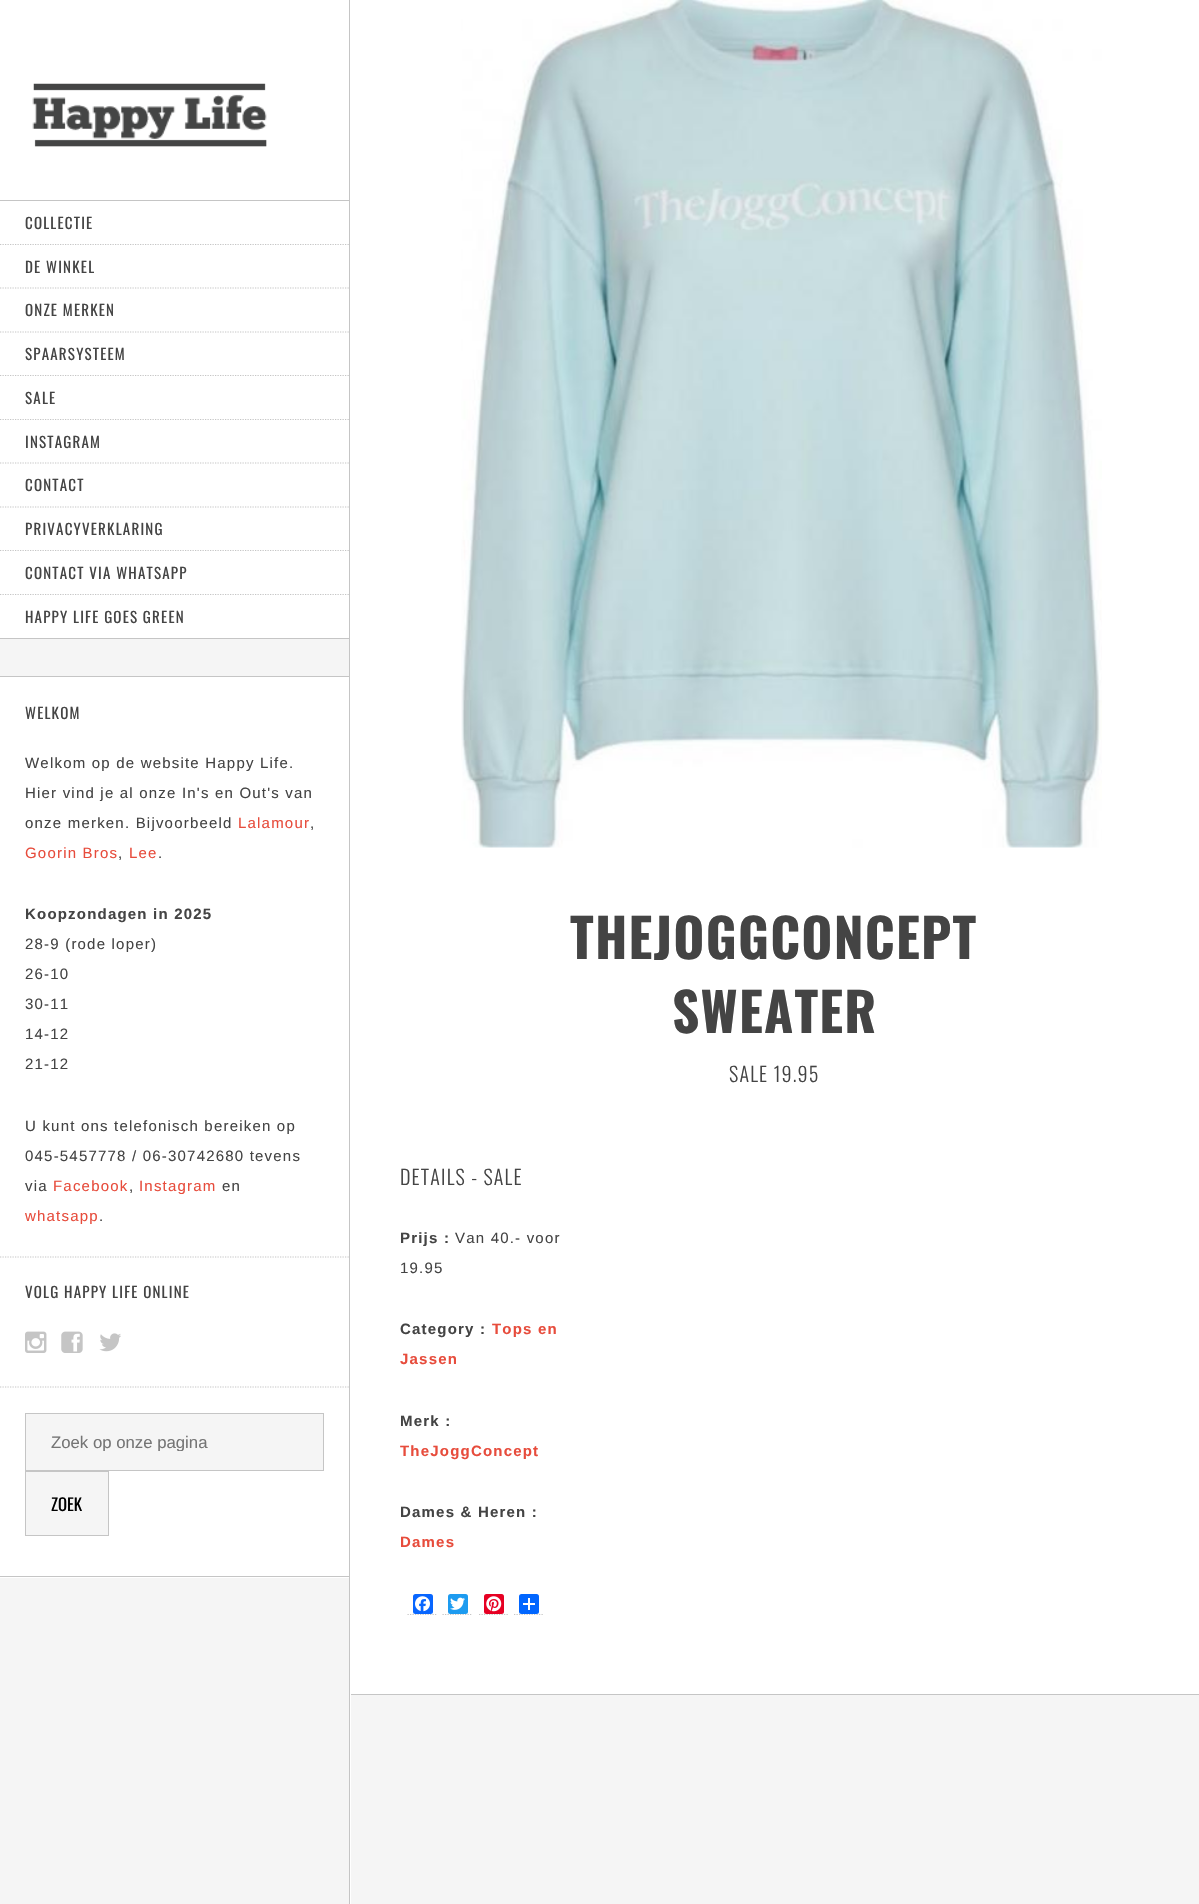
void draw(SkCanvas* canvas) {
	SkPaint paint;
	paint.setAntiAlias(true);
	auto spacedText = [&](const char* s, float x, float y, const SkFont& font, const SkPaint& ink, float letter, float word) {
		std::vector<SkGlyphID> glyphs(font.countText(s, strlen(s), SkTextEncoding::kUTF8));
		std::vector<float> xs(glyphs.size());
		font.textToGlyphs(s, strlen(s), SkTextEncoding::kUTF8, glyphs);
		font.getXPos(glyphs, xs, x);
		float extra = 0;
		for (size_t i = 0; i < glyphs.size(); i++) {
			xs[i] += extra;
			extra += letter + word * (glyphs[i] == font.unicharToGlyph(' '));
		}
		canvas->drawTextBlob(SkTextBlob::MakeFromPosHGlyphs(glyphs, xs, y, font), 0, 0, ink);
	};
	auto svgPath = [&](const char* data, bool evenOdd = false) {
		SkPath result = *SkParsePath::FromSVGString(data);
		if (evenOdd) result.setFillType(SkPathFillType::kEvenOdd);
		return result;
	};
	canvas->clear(0xfff5f5f5);
	paint.setColor(0xffc5c5c5);
	canvas->drawRect(SkRect::MakeXYWH(350, 1694, 849, 1), paint);
	paint.setColor(0xffffffff);
	canvas->drawPath(svgPath("M-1-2V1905H0V0H350V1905H351V-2Z"), paint);
	paint.setColor(0xffc5c5c5);
	canvas->drawRect(SkRect::MakeXYWH(349, 0, 1, 1904), paint);
	paint.setColor(0xffffffff);
	canvas->drawRect(SkRect::MakeXYWH(0, 0, 349, 200), paint);
	paint.setColor(0xffc5c5c5);
	canvas->drawRect(SkRect::MakeXYWH(0, 200, 349, 1), paint);
	canvas->drawImageRect(SkImages::DeferredFromEncodedData(SkData::MakeFromFileName("img1.png")), SkRect::MakeXYWH(32, 83, 235, 64), SkSamplingOptions());
	paint.setColor(0xffffffff);
	canvas->drawRect(SkRect::MakeXYWH(0, 201, 349, 44), paint);
	paint.setStroke(true);
	paint.setStrokeWidth(1.2);
	paint.setColor(0xffc5c5c5);
	paint.setPathEffect(SkDashPathEffect::Make({{1.25f, 1.25f}}, 0));
	canvas->drawPath(svgPath("M0 244.5H349"), paint);
	paint.setPathEffect(nullptr);
	SkFont f1(fontMgr->matchFamilyStyle("Oswald", SkFontStyle::Normal()), 15);
	f1.setSubpixel(true);
	paint.setStroke(false);
	paint.setColor(0xff444444);
	spacedText("COLLECTIE", 25, 229, f1, paint, 1.2, 0);
	paint.setColor(0xffffffff);
	canvas->drawRect(SkRect::MakeXYWH(0, 245, 349, 131), paint);
	paint.setStroke(true);
	paint.setColor(0xffc5c5c5);
	paint.setPathEffect(SkDashPathEffect::Make({{1.25f, 1.25f}}, 0));
	canvas->drawPath(svgPath("M0 288H349"), paint);
	paint.setPathEffect(nullptr);
	paint.setStroke(false);
	paint.setColor(0xff444444);
	spacedText("DE WINKEL", 25, 273, f1, paint, 1.2, 0);
	paint.setStroke(true);
	paint.setColor(0xffc5c5c5);
	paint.setPathEffect(SkDashPathEffect::Make({{1.25f, 1.25f}}, 0));
	canvas->drawPath(svgPath("M0 332H349"), paint);
	paint.setPathEffect(nullptr);
	paint.setStroke(false);
	paint.setColor(0xff444444);
	spacedText("ONZE MERKEN", 25, 316, f1, paint, 1.2, 0);
	paint.setStroke(true);
	paint.setColor(0xffc5c5c5);
	paint.setPathEffect(SkDashPathEffect::Make({{1.25f, 1.25f}}, 0));
	canvas->drawPath(svgPath("M0 375.5H349"), paint);
	paint.setPathEffect(nullptr);
	paint.setStroke(false);
	paint.setColor(0xff444444);
	spacedText("SPAARSYSTEEM", 25, 360, f1, paint, 1.2, 0);
	paint.setColor(0xffffffff);
	canvas->drawRect(SkRect::MakeXYWH(0, 376, 349, 44), paint);
	paint.setStroke(true);
	paint.setColor(0xffc5c5c5);
	paint.setPathEffect(SkDashPathEffect::Make({{1.25f, 1.25f}}, 0));
	canvas->drawPath(svgPath("M0 419.5H349"), paint);
	paint.setPathEffect(nullptr);
	paint.setStroke(false);
	paint.setColor(0xff444444);
	spacedText("SALE", 25, 404, f1, paint, 1.2, 0);
	paint.setColor(0xffffffff);
	canvas->drawRect(SkRect::MakeXYWH(0, 420, 349, 131), paint);
	paint.setStroke(true);
	paint.setColor(0xffc5c5c5);
	paint.setPathEffect(SkDashPathEffect::Make({{1.25f, 1.25f}}, 0));
	canvas->drawPath(svgPath("M0 463H349"), paint);
	paint.setPathEffect(nullptr);
	paint.setStroke(false);
	paint.setColor(0xff444444);
	spacedText("INSTAGRAM", 25, 448, f1, paint, 1.2, 0);
	paint.setStroke(true);
	paint.setColor(0xffc5c5c5);
	paint.setPathEffect(SkDashPathEffect::Make({{1.25f, 1.25f}}, 0));
	canvas->drawPath(svgPath("M0 507H349"), paint);
	paint.setPathEffect(nullptr);
	paint.setStroke(false);
	paint.setColor(0xff444444);
	spacedText("CONTACT", 25, 491, f1, paint, 1.2, 0);
	paint.setStroke(true);
	paint.setColor(0xffc5c5c5);
	paint.setPathEffect(SkDashPathEffect::Make({{1.25f, 1.25f}}, 0));
	canvas->drawPath(svgPath("M0 550.5H349"), paint);
	paint.setPathEffect(nullptr);
	paint.setStroke(false);
	paint.setColor(0xff444444);
	spacedText("PRIVACYVERKLARING", 25, 535, f1, paint, 1.2, 0);
	paint.setColor(0xffffffff);
	canvas->drawRect(SkRect::MakeXYWH(0, 551, 349, 44), paint);
	paint.setStroke(true);
	paint.setColor(0xffc5c5c5);
	paint.setPathEffect(SkDashPathEffect::Make({{1.25f, 1.25f}}, 0));
	canvas->drawPath(svgPath("M0 594.5H349"), paint);
	paint.setPathEffect(nullptr);
	paint.setStroke(false);
	paint.setColor(0xff444444);
	spacedText("CONTACT VIA WHATSAPP", 25, 579, f1, paint, 1.2, 0);
	paint.setColor(0xffffffff);
	canvas->drawRect(SkRect::MakeXYWH(0, 595, 349, 43), paint);
	paint.setColor(0xffc5c5c5);
	canvas->drawRect(SkRect::MakeXYWH(0, 638, 349, 1), paint);
	paint.setColor(0xff444444);
	spacedText("HAPPY LIFE GOES GREEN", 25, 623, f1, paint, 1.2, 0);
	paint.setColor(0xffffffff);
	canvas->drawRect(SkRect::MakeXYWH(0, 677, 349, 901), paint);
	paint.setColor(0xffc5c5c5);
	canvas->drawRect(SkRect::MakeXYWH(0, 676, 349, 1), paint);
	paint.setStroke(true);
	paint.setPathEffect(SkDashPathEffect::Make({{1.25f, 1.25f}}, 0));
	canvas->drawPath(svgPath("M0 1257H349"), paint);
	paint.setPathEffect(nullptr);
	paint.setStroke(false);
	paint.setColor(0xff444444);
	spacedText("WELKOM", 25, 719, f1, paint, 1.2, 0);
	SkFont f2(fontMgr->matchFamilyStyle("Liberation Sans", SkFontStyle::Normal()), 15);
	f2.setSubpixel(true);
	spacedText("Welkom op de website Happy Life.", 25, 768, f2, paint, 1.2, 0);
	spacedText("Hier vind je al onze In's en Out's van", 25, 798, f2, paint, 1.2, 0);
	spacedText("onze merken. Bijvoorbeeld", 25, 828, f2, paint, 1.2, 0);
	paint.setColor(0xffe74c3c);
	spacedText("Lalamour", 238, 828, f2, paint, 1.2, 0);
	paint.setColor(0xff444444);
	spacedText(",", 310, 828, f2, paint, 1.2, 0);
	paint.setColor(0xffe74c3c);
	spacedText("Goorin Bros", 25, 858, f2, paint, 1.2, 0);
	paint.setColor(0xff444444);
	spacedText(",", 118, 858, f2, paint, 1.2, 0);
	paint.setColor(0xffe74c3c);
	spacedText("Lee", 129, 858, f2, paint, 1.2, 0);
	paint.setColor(0xff444444);
	spacedText(".", 158, 858, f2, paint, 1.2, 0);
	SkFont f3(fontMgr->matchFamilyStyle("Liberation Sans", SkFontStyle::Bold()), 15);
	f3.setSubpixel(true);
	spacedText("Koopzondagen in 2025", 25, 919, f3, paint, 1.2, 0);
	spacedText("28-9 (rode loper)", 25, 949, f2, paint, 1.2, 0);
	spacedText("26-10", 25, 979, f2, paint, 1.2, 0);
	spacedText("30-11", 25, 1009, f2, paint, 1.2, 0);
	spacedText("14-12", 25, 1039, f2, paint, 1.2, 0);
	spacedText("21-12", 25, 1069, f2, paint, 1.2, 0);
	spacedText("U kunt ons telefonisch bereiken op", 25, 1131, f2, paint, 1.2, 0);
	spacedText("045-5457778 / 06-30742680 tevens", 25, 1161, f2, paint, 1.2, 0);
	spacedText("via", 25, 1191, f2, paint, 1.2, 0);
	paint.setColor(0xffe74c3c);
	spacedText("Facebook", 53, 1191, f2, paint, 1.2, 0);
	paint.setColor(0xff444444);
	spacedText(",", 129, 1191, f2, paint, 1.2, 0);
	paint.setColor(0xffe74c3c);
	spacedText("Instagram", 139, 1191, f2, paint, 1.2, 0);
	paint.setColor(0xff444444);
	spacedText("en", 222, 1191, f2, paint, 1.2, 0);
	paint.setColor(0xffe74c3c);
	spacedText("whatsapp", 25, 1221, f2, paint, 1.2, 0);
	paint.setColor(0xff444444);
	spacedText(".", 99, 1221, f2, paint, 1.2, 0);
	paint.setStroke(true);
	paint.setColor(0xffc5c5c5);
	paint.setPathEffect(SkDashPathEffect::Make({{1.25f, 1.25f}}, 0));
	canvas->drawPath(svgPath("M0 1387H349"), paint);
	paint.setPathEffect(nullptr);
	paint.setStroke(false);
	paint.setColor(0xff444444);
	spacedText("VOLG HAPPY LIFE ONLINE", 25, 1298, f1, paint, 1.2, 0);
	canvas->drawImageRect(SkImages::DeferredFromEncodedData(SkData::MakeFromFileName("img2.png")), SkRect::MakeXYWH(25, 1331, 22, 22), SkSamplingOptions());
	canvas->drawImageRect(SkImages::DeferredFromEncodedData(SkData::MakeFromFileName("img3.png")), SkRect::MakeXYWH(61, 1331, 22, 22), SkSamplingOptions());
	canvas->drawImageRect(SkImages::DeferredFromEncodedData(SkData::MakeFromFileName("img4.png")), SkRect::MakeXYWH(99, 1333, 22, 19), SkSamplingOptions());
	paint.setColor(0xffc5c5c5);
	canvas->drawRect(SkRect::MakeXYWH(0, 1576, 349, 1), paint);
	paint.setColor(0xfff5f5f5);
	canvas->drawRect(SkRect::MakeXYWH(25.5, 1413.5, 298, 57), paint);
	paint.setStroke(true);
	paint.setStrokeWidth(1);
	paint.setColor(0xffc5c5c5);
	canvas->drawRect(SkRect::MakeXYWH(25.5, 1413.5, 298, 57), paint);
	canvas->save();
	canvas->clipRect(SkRect::MakeXYWH(51, 1433, 247, 18));
	SkFont f4(fontMgr->matchFamilyStyle("Liberation Sans", SkFontStyle::Normal()), 16.75);
	f4.setSubpixel(true);
	paint.setStroke(false);
	paint.setColor(0xff757575);
	canvas->drawString("Zoek op onze pagina", 51, 1448, f4, paint);
	canvas->restore();
	paint.setColor(0xfff5f5f5);
	canvas->drawRect(SkRect::MakeXYWH(25.5, 1471.5, 83, 64), paint);
	paint.setStroke(true);
	paint.setColor(0xffc5c5c5);
	canvas->drawRect(SkRect::MakeXYWH(25.5, 1471.5, 83, 64), paint);
	SkFont f5(fontMgr->matchFamilyStyle("Oswald", SkFontStyle::Normal()), 16.75);
	f5.setSubpixel(true);
	paint.setStroke(false);
	paint.setColor(0xff000000);
	canvas->drawString("ZOEK", 51, 1511, f5, paint);
	paint.setColor(0xffffffff);
	canvas->drawRect(SkRect::MakeXYWH(351, 0, 848, 1694), paint);
	canvas->drawImageRect(SkImages::DeferredFromEncodedData(SkData::MakeFromFileName("img5.png")), SkRect::MakeXYWH(461, 0, 641, 848), SkSamplingOptions());
	SkFont f6(fontMgr->matchFamilyStyle("Oswald", SkFontStyle::Bold()), 53.25);
	f6.setSubpixel(true);
	paint.setColor(0xff444444);
	spacedText("THEJOGGCONCEPT", 570, 959, f6, paint, 1.2, 0);
	spacedText("SWEATER", 672, 1033, f6, paint, 1.2, 0);
	SkFont f7(fontMgr->matchFamilyStyle("Oswald", SkFontStyle(300, SkFontStyle::kNormal_Width, SkFontStyle::kUpright_Slant)), 20);
	f7.setSubpixel(true);
	spacedText("SALE 19.95", 729, 1082, f7, paint, 1.2, 0);
	spacedText("DETAILS - SALE", 400, 1185, f7, paint, 1.2, 0);
	spacedText("Prijs :", 400, 1243, f3, paint, 1.2, 0);
	spacedText("Van 40.- voor", 455, 1243, f2, paint, 1.2, 0);
	spacedText("19.95", 400, 1273, f2, paint, 1.2, 0);
	spacedText("Category :", 400, 1334, f3, paint, 1.2, 0);
	paint.setColor(0xffe74c3c);
	spacedText("Tops en", 492, 1334, f3, paint, 1.2, 0);
	spacedText("Jassen", 400, 1364, f3, paint, 1.2, 0);
	paint.setColor(0xff444444);
	spacedText("Merk :", 400, 1426, f3, paint, 1.2, 0);
	paint.setColor(0xffe74c3c);
	spacedText("TheJoggConcept", 400, 1456, f3, paint, 1.2, 0);
	paint.setColor(0xff444444);
	spacedText("Dames & Heren :", 400, 1517, f3, paint, 1.2, 0);
	paint.setColor(0xffe74c3c);
	spacedText("Dames", 400, 1547, f3, paint, 1.2, 0);
	paint.setStroke(true);
	paint.setStrokeWidth(1.2);
	paint.setColor(0xffc5c5c5);
	paint.setPathEffect(SkDashPathEffect::Make({{1.25f, 1.25f}}, 0));
	canvas->drawPath(svgPath("M407.5 1614.5H437.5"), paint);
	paint.setPathEffect(nullptr);
	paint.setStroke(false);
	paint.setColor(0xff0866ff);
	canvas->drawRoundRect(SkRect::MakeXYWH(413, 1594, 20, 20), 2.5, 2.5, paint);
	canvas->drawImageRect(SkImages::DeferredFromEncodedData(SkData::MakeFromFileName("img6.png")), SkRect::MakeXYWH(415, 1596, 15, 16), SkSamplingOptions());
	paint.setStroke(true);
	paint.setColor(0xffc5c5c5);
	paint.setPathEffect(SkDashPathEffect::Make({{1.25f, 1.25f}}, 0));
	canvas->drawPath(svgPath("M442.5 1614.5H472.5"), paint);
	paint.setPathEffect(nullptr);
	paint.setStroke(false);
	paint.setColor(0xff1d9bf0);
	canvas->drawRoundRect(SkRect::MakeXYWH(448, 1594, 20, 20), 2.5, 2.5, paint);
	canvas->drawImageRect(SkImages::DeferredFromEncodedData(SkData::MakeFromFileName("img7.png")), SkRect::MakeXYWH(450, 1597, 15, 13), SkSamplingOptions());
	paint.setStroke(true);
	paint.setColor(0xffc5c5c5);
	paint.setPathEffect(SkDashPathEffect::Make({{1.25f, 1.25f}}, 0));
	canvas->drawPath(svgPath("M479 1614.5H509"), paint);
	paint.setPathEffect(nullptr);
	paint.setStroke(false);
	paint.setColor(0xffe60023);
	canvas->drawRoundRect(SkRect::MakeXYWH(484, 1594, 20, 20), 2.5, 2.5, paint);
	canvas->drawImageRect(SkImages::DeferredFromEncodedData(SkData::MakeFromFileName("img8.png")), SkRect::MakeXYWH(486, 1596, 16, 16), SkSamplingOptions());
	paint.setStroke(true);
	paint.setColor(0xffc5c5c5);
	paint.setPathEffect(SkDashPathEffect::Make({{1.25f, 1.25f}}, 0));
	canvas->drawPath(svgPath("M514 1614.5H544"), paint);
	paint.setPathEffect(nullptr);
	paint.setStroke(false);
	paint.setColor(0xff0166ff);
	canvas->drawRoundRect(SkRect::MakeXYWH(519, 1594, 20, 20), 2.5, 2.5, paint);
	paint.setColor(0xffffffff);
	canvas->drawRect(SkRect::MakeXYWH(528, 1598, 2, 12), paint);
	canvas->drawRect(SkRect::MakeXYWH(523, 1603, 12, 2), paint);
}
